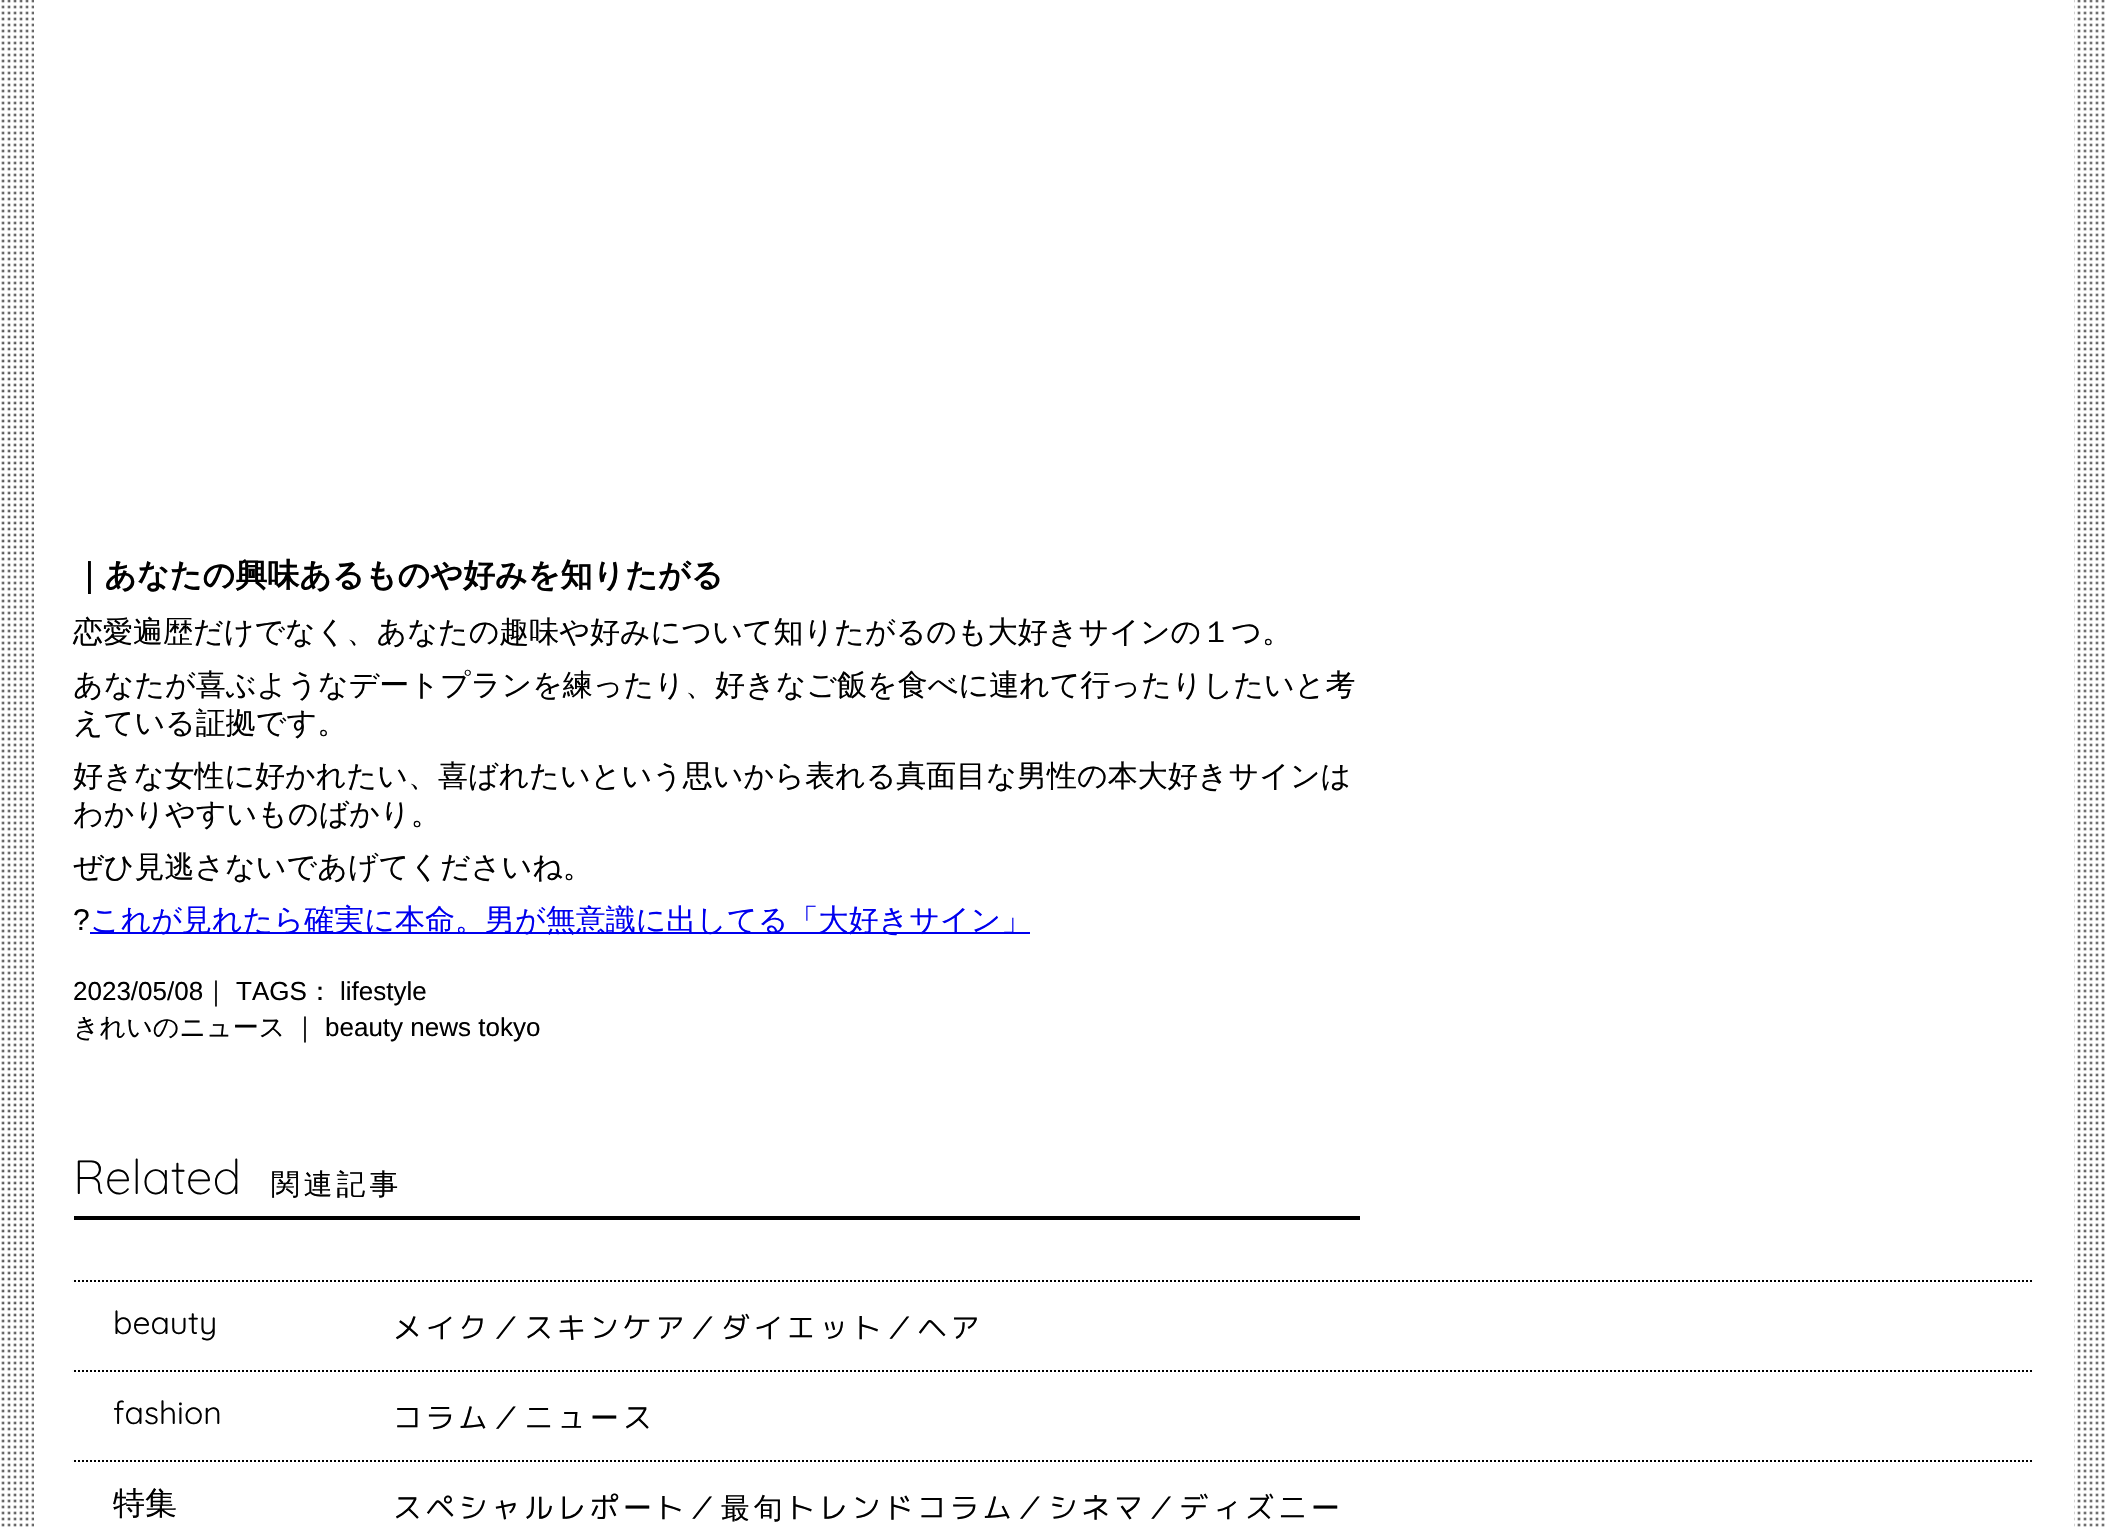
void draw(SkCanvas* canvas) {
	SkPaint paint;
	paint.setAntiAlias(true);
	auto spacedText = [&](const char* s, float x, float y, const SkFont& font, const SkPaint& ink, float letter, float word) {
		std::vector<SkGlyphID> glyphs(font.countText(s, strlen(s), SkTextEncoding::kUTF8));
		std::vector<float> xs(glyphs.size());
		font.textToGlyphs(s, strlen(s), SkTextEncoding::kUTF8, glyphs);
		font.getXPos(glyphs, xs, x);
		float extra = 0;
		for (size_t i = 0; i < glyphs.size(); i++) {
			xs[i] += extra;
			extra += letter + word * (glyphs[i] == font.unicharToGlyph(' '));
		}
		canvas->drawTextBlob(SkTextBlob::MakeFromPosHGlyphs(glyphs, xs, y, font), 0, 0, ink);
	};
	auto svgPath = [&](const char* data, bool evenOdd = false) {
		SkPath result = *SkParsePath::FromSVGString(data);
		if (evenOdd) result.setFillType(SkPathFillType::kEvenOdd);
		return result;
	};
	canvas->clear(0xffffffff);
	canvas->drawImageRect(SkImages::DeferredFromEncodedData(SkData::MakeFromFileName("img1.png")), SkRect::MakeXYWH(1, 0, 2104, 1527), SkSamplingOptions());
	paint.setColor(0xffffffff);
	canvas->drawRect(SkRect::MakeXYWH(34, 0, 2040, 1527), paint);
	SkFont f1(fontMgr->matchFamilyStyle("WenQuanYi Zen Hei", SkFontStyle::Bold()), 32);
	f1.setSubpixel(true);
	paint.setColor(0xff000000);
	canvas->drawString("｜あなたの興味あるものや好みを知りたがる", 73, 586, f1, paint);
	SkFont f2(fontMgr->matchFamilyStyle("WenQuanYi Zen Hei", SkFontStyle(500, SkFontStyle::kNormal_Width, SkFontStyle::kUpright_Slant)), 30);
	f2.setSubpixel(true);
	canvas->drawString("恋愛遍歴だけでなく、あなたの趣味や好みについて知りたがるのも大好きサインの１つ。", 73, 642, f2, paint);
	canvas->drawString("あなたが喜ぶようなデートプランを練ったり、好きなご飯を食べに連れて行ったりしたいと考", 73, 695, f2, paint);
	canvas->drawString("えている証拠です。", 73, 733, f2, paint);
	canvas->drawString("好きな女性に好かれたい、喜ばれたいという思いから表れる真面目な男性の本大好きサインは", 73, 786, f2, paint);
	canvas->drawString("わかりやすいものばかり。", 73, 824, f2, paint);
	canvas->drawString("ぜひ見逃さないであげてくださいね。", 73, 877, f2, paint);
	SkFont f3(fontMgr->matchFamilyStyle("Liberation Sans", SkFontStyle::Normal()), 30);
	f3.setSubpixel(true);
	canvas->drawString("?", 73, 930, f3, paint);
	paint.setColor(0xff0000ee);
	canvas->drawRect(SkRect::MakeXYWH(90, 932, 940, 2), paint);
	canvas->drawString("これが見れたら確実に本命。男が無意識に出してる「大好きサイン」", 90, 930, f2, paint);
	SkFont f4(fontMgr->matchFamilyStyle("Liberation Sans", SkFontStyle::Normal()), 26);
	f4.setSubpixel(true);
	paint.setColor(0xff000000);
	canvas->drawString("2023/05/08", 73, 1000, f4, paint);
	SkFont f5(fontMgr->matchFamilyStyle("WenQuanYi Zen Hei", SkFontStyle(500, SkFontStyle::kNormal_Width, SkFontStyle::kUpright_Slant)), 26);
	f5.setSubpixel(true);
	canvas->drawString("｜", 203, 1000, f5, paint);
	canvas->drawString("TAGS", 236, 1000, f4, paint);
	canvas->drawString("：", 307, 1000, f5, paint);
	canvas->drawString("lifestyle", 340, 1000, f4, paint);
	spacedText("きれいのニュース ｜", 73, 1036, f5, paint, 0, -1);
	canvas->drawString("beauty news tokyo", 325, 1036, f4, paint);
	canvas->drawRect(SkRect::MakeXYWH(74, 1216, 1286, 4), paint);
	SkFont f6(fontMgr->matchFamilyStyle("Quicksand", SkFontStyle(300, SkFontStyle::kNormal_Width, SkFontStyle::kUpright_Slant)), 48);
	f6.setSubpixel(true);
	canvas->drawString("Related", 73, 1194, f6, paint);
	SkFont f7(fontMgr->matchFamilyStyle("WenQuanYi Zen Hei", SkFontStyle(500, SkFontStyle::kNormal_Width, SkFontStyle::kUpright_Slant)), 28.8);
	f7.setSubpixel(true);
	spacedText("関連記事", 271, 1194, f7, paint, 4, 0);
	paint.setStroke(true);
	paint.setStrokeWidth(2);
	paint.setPathEffect(SkDashPathEffect::Make({{2, 2}}, 0));
	canvas->drawPath(svgPath("M74 1281H2034"), paint);
	paint.setPathEffect(nullptr);
	paint.setPathEffect(SkDashPathEffect::Make({{2, 2}}, 0));
	canvas->drawPath(svgPath("M74 1371H2034"), paint);
	paint.setPathEffect(nullptr);
	SkFont f8(fontMgr->matchFamilyStyle("Quicksand", SkFontStyle::Normal()), 32);
	f8.setSubpixel(true);
	paint.setStroke(false);
	canvas->drawString("beauty", 113, 1334, f8, paint);
	SkFont f9(fontMgr->matchFamilyStyle("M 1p", SkFontStyle::Normal()), 28.8);
	f9.setSubpixel(true);
	spacedText("メイク／スキンケア／ダイエット／ヘア", 393, 1338, f9, paint, 4, 0);
	paint.setStroke(true);
	paint.setPathEffect(SkDashPathEffect::Make({{2, 2}}, 0));
	canvas->drawPath(svgPath("M74 1461H2034"), paint);
	paint.setPathEffect(nullptr);
	paint.setStroke(false);
	canvas->drawString("fashion", 113, 1424, f8, paint);
	spacedText("コラム／ニュ", 393, 1428, f9, paint, 4, 0);
	spacedText("ー", 590, 1428, f7, paint, 4, 0);
	spacedText("ス", 623, 1428, f9, paint, 4, 0);
	SkFont f10(fontMgr->matchFamilyStyle("WenQuanYi Zen Hei", SkFontStyle(500, SkFontStyle::kNormal_Width, SkFontStyle::kUpright_Slant)), 32);
	f10.setSubpixel(true);
	canvas->drawString("特集", 113, 1514, f10, paint);
	spacedText("スペシャルレポ", 393, 1518, f9, paint, 4, 0);
	spacedText("ー", 623, 1518, f7, paint, 4, 0);
	spacedText("ト／", 655, 1518, f9, paint, 4, 0);
	spacedText("最旬", 721, 1518, f7, paint, 4, 0);
	spacedText("トレンドコラム／シネマ／ディズニ", 786, 1518, f9, paint, 4, 0);
	spacedText("ー", 1311, 1518, f7, paint, 4, 0);
}
